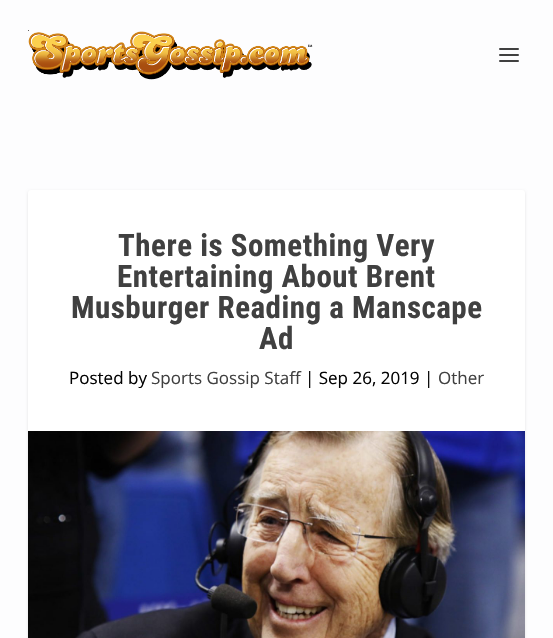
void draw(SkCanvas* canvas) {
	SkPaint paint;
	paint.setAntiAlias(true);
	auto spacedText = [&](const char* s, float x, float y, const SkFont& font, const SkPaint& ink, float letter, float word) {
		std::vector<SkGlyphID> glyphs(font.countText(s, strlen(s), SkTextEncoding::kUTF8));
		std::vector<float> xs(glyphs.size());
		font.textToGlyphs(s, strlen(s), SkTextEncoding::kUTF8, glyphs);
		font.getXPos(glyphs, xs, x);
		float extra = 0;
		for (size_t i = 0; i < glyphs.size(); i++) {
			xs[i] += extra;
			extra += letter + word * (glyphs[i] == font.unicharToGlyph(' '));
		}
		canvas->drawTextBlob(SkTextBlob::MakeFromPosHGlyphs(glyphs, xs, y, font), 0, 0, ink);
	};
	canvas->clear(0xfffdfdfe);
	canvas->drawImageRect(SkImages::DeferredFromEncodedData(SkData::MakeFromFileName("img1.png")), SkRect::MakeXYWH(28, 30, 285, 50), SkSamplingOptions());
	paint.setColor(0xff404040);
	canvas->drawRoundRect(SkRect::MakeXYWH(499, 48, 20, 2), 1, 1, paint);
	canvas->drawRoundRect(SkRect::MakeXYWH(499, 54, 20, 2), 1, 1, paint);
	canvas->drawRoundRect(SkRect::MakeXYWH(499, 60, 20, 2), 1, 1, paint);
	paint.setColor(0x1a000000);
	paint.setMaskFilter(SkMaskFilter::MakeBlur(kNormal_SkBlurStyle, 1.5));
	canvas->drawRoundRect(SkRect::MakeXYWH(28, 191, 497, 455), 3, 3, paint);
	paint.setMaskFilter(nullptr);
	paint.setColor(0xffffffff);
	canvas->drawRoundRect(SkRect::MakeXYWH(28, 190, 497, 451), 3, 3, paint);
	SkFont f1(fontMgr->matchFamilyStyle("Roboto Condensed", SkFontStyle::Bold()), 31);
	f1.setSubpixel(true);
	paint.setColor(0xff404040);
	spacedText("There is Something Very", 118, 256, f1, paint, 0.5, 0);
	spacedText("Entertaining About Brent", 117, 287, f1, paint, 0.5, 0);
	spacedText("Musburger Reading a Manscape", 71, 318, f1, paint, 0.5, 0);
	spacedText("Ad", 259, 349, f1, paint, 0.5, 0);
	SkFont f2(fontMgr->matchFamilyStyle("Open Sans", SkFontStyle::Normal()), 17);
	f2.setSubpixel(true);
	paint.setColor(0xff030303);
	canvas->drawString("Posted by", 69, 384, f2, paint);
	paint.setColor(0xff404040);
	canvas->drawString("Sports Gossip Staff", 151, 384, f2, paint);
	paint.setColor(0xff030303);
	canvas->drawString("| Sep 26, 2019 |", 305, 384, f2, paint);
	paint.setColor(0xff404040);
	canvas->drawString("Other", 438, 384, f2, paint);
	canvas->drawImageRect(SkImages::DeferredFromEncodedData(SkData::MakeFromFileName("img2.png")), SkRect::MakeXYWH(28, 431, 497, 207), SkSamplingOptions());
}
